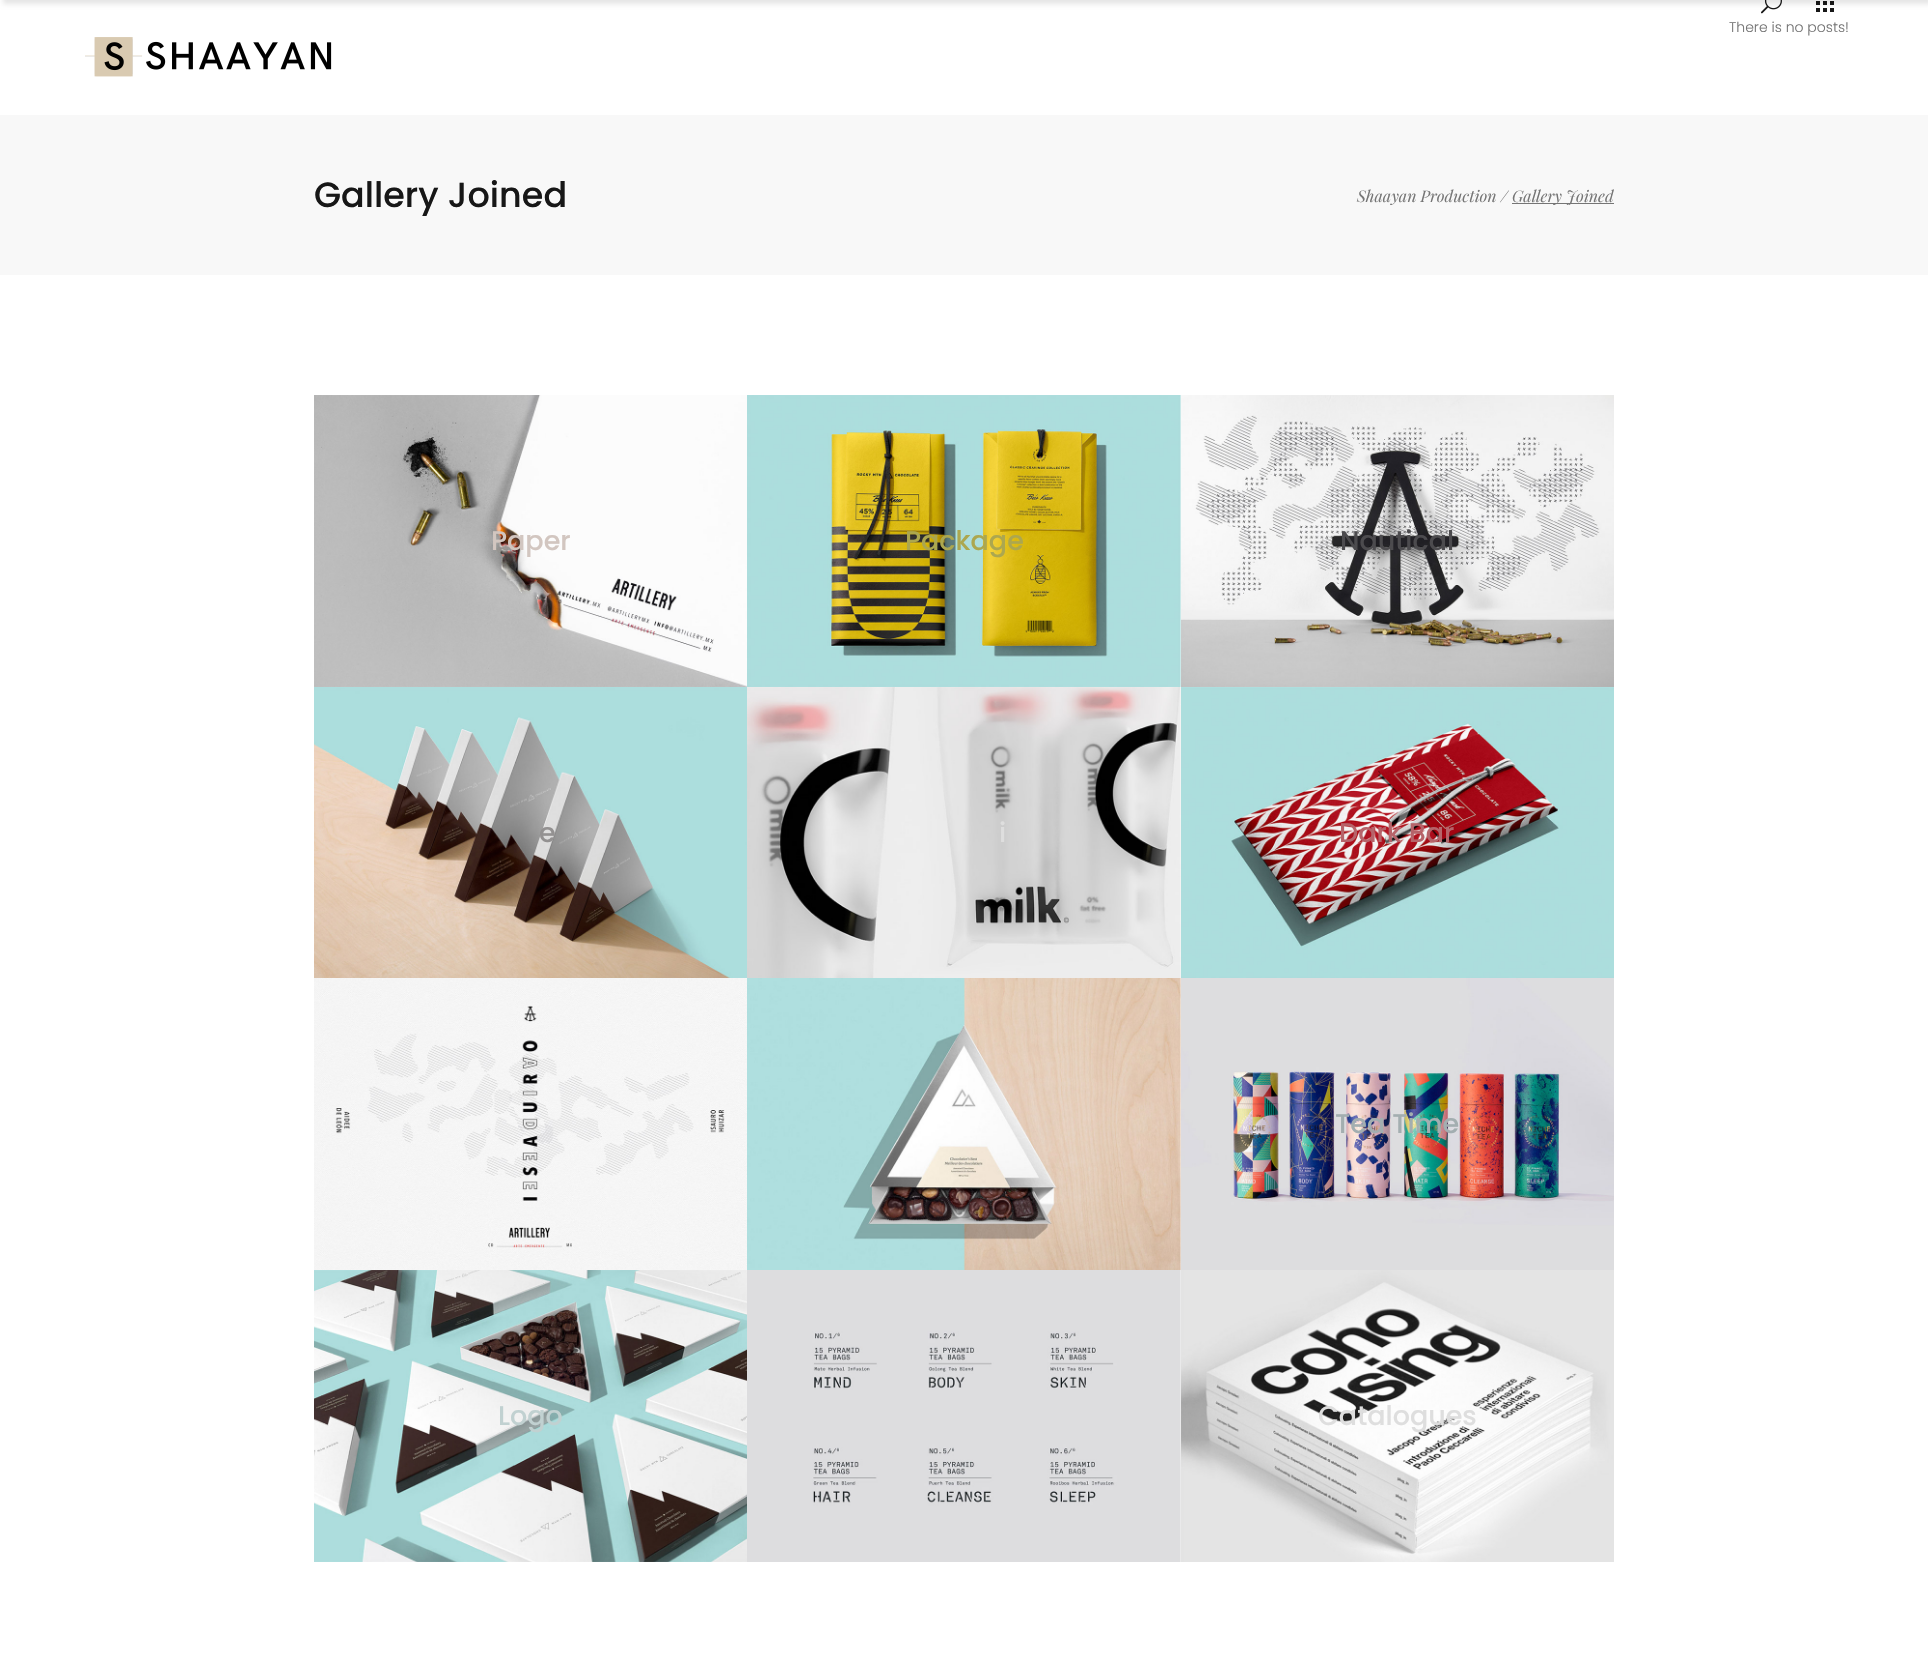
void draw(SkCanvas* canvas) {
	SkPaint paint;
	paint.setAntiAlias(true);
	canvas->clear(0xffffffff);
	canvas->drawImageRect(SkImages::DeferredFromEncodedData(SkData::MakeFromFileName("img1.png")), SkRect::MakeXYWH(1761, 0, 21, 14), SkSamplingOptions());
	paint.setColor(0xff171717);
	canvas->drawRect(SkRect::MakeXYWH(1816, 1, 4, 4), paint);
	canvas->drawRect(SkRect::MakeXYWH(1823, 1, 4, 4), paint);
	canvas->drawRect(SkRect::MakeXYWH(1830, 1, 4, 4), paint);
	canvas->drawRect(SkRect::MakeXYWH(1816, 8, 4, 4), paint);
	canvas->drawRect(SkRect::MakeXYWH(1823, 8, 4, 4), paint);
	canvas->drawRect(SkRect::MakeXYWH(1830, 8, 4, 4), paint);
	paint.setColor(0x1a000000);
	paint.setMaskFilter(SkMaskFilter::MakeBlur(kNormal_SkBlurStyle, 2.5));
	canvas->drawRect(SkRect::MakeXYWH(3, -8, 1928, 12), paint);
	paint.setMaskFilter(nullptr);
	SkFont f1(fontMgr->matchFamilyStyle("Poppins", SkFontStyle(300, SkFontStyle::kNormal_Width, SkFontStyle::kUpright_Slant)), 14);
	f1.setSubpixel(true);
	paint.setColor(0xff757575);
	canvas->drawString("There is no posts!", 1729, 32, f1, paint);
	canvas->drawImageRect(SkImages::DeferredFromEncodedData(SkData::MakeFromFileName("img2.png")), SkRect::MakeXYWH(85, 37, 247, 40), SkSamplingOptions());
	paint.setColor(0xfff8f8f8);
	canvas->drawRect(SkRect::MakeXYWH(0, 115, 1928, 160), paint);
	SkFont f2(fontMgr->matchFamilyStyle("Poppins", SkFontStyle(500, SkFontStyle::kNormal_Width, SkFontStyle::kUpright_Slant)), 35);
	f2.setSubpixel(true);
	paint.setColor(0xff171717);
	canvas->drawString("Gallery Joined", 314, 207, f2, paint);
	SkFont f3(fontMgr->matchFamilyStyle("Playfair Display", SkFontStyle::Italic()), 16);
	f3.setSubpixel(true);
	paint.setColor(0xff757575);
	canvas->drawString("Shaayan Production /", 1357, 202, f3, paint);
	canvas->drawRect(SkRect::MakeXYWH(1512, 203, 102, 1), paint);
	canvas->drawString("Gallery Joined", 1512, 202, f3, paint);
	canvas->drawImageRect(SkImages::DeferredFromEncodedData(SkData::MakeFromFileName("img3.png")), SkRect::MakeXYWH(314, 395, 433, 292), SkSamplingOptions());
	SkFont f4(fontMgr->matchFamilyStyle("Poppins", SkFontStyle(500, SkFontStyle::kNormal_Width, SkFontStyle::kUpright_Slant)), 27);
	f4.setSubpixel(true);
	paint.setColor(0xffd2c6c0);
	canvas->drawString("Paper", 491, 550, f4, paint);
	canvas->drawImageRect(SkImages::DeferredFromEncodedData(SkData::MakeFromFileName("img4.png")), SkRect::MakeXYWH(747, 395, 434, 292), SkSamplingOptions());
	paint.setColor(0xffaca74f);
	canvas->drawString("Package", 905, 550, f4, paint);
	canvas->drawImageRect(SkImages::DeferredFromEncodedData(SkData::MakeFromFileName("img5.png")), SkRect::MakeXYWH(1181, 395, 433, 292), SkSamplingOptions());
	paint.setColor(0xff4c4b4e);
	canvas->drawString("Nautical", 1340, 550, f4, paint);
	canvas->drawImageRect(SkImages::DeferredFromEncodedData(SkData::MakeFromFileName("img6.png")), SkRect::MakeXYWH(314, 687, 433, 291), SkSamplingOptions());
	paint.setColor(0xff939191);
	canvas->drawString("e", 539, 842, f4, paint);
	canvas->drawImageRect(SkImages::DeferredFromEncodedData(SkData::MakeFromFileName("img7.png")), SkRect::MakeXYWH(747, 687, 434, 291), SkSamplingOptions());
	paint.setColor(0xffdedede);
	canvas->drawString("i", 999, 842, f4, paint);
	canvas->drawImageRect(SkImages::DeferredFromEncodedData(SkData::MakeFromFileName("img8.png")), SkRect::MakeXYWH(1181, 687, 433, 291), SkSamplingOptions());
	paint.setColor(0xffb6646a);
	canvas->drawString("Dark Bar", 1339, 842, f4, paint);
	canvas->drawImageRect(SkImages::DeferredFromEncodedData(SkData::MakeFromFileName("img9.png")), SkRect::MakeXYWH(314, 978, 433, 292), SkSamplingOptions());
	canvas->drawImageRect(SkImages::DeferredFromEncodedData(SkData::MakeFromFileName("img10.png")), SkRect::MakeXYWH(747, 978, 434, 292), SkSamplingOptions());
	canvas->drawImageRect(SkImages::DeferredFromEncodedData(SkData::MakeFromFileName("img11.png")), SkRect::MakeXYWH(1181, 978, 433, 292), SkSamplingOptions());
	paint.setColor(0xffa3aeb0);
	canvas->drawString("Tea Time", 1335, 1133, f4, paint);
	canvas->drawImageRect(SkImages::DeferredFromEncodedData(SkData::MakeFromFileName("img12.png")), SkRect::MakeXYWH(314, 1270, 433, 292), SkSamplingOptions());
	paint.setColor(0xffc1d1d1);
	canvas->drawString("Logo", 498, 1425, f4, paint);
	canvas->drawImageRect(SkImages::DeferredFromEncodedData(SkData::MakeFromFileName("img13.png")), SkRect::MakeXYWH(747, 1270, 434, 292), SkSamplingOptions());
	canvas->drawImageRect(SkImages::DeferredFromEncodedData(SkData::MakeFromFileName("img14.png")), SkRect::MakeXYWH(1181, 1270, 433, 292), SkSamplingOptions());
	paint.setColor(0xffdedede);
	canvas->drawString("Catalogues", 1318, 1425, f4, paint);
}
